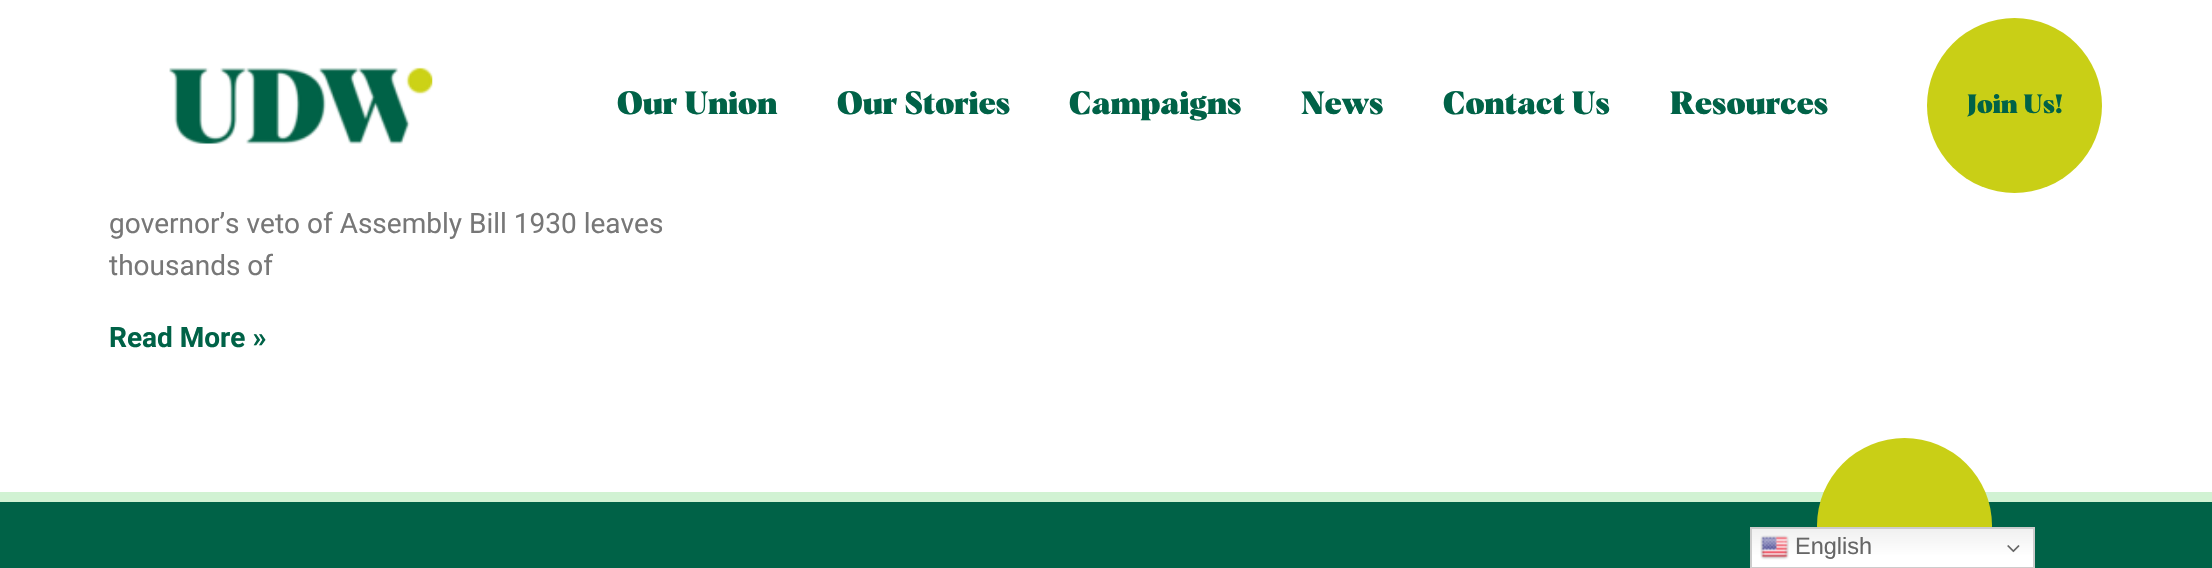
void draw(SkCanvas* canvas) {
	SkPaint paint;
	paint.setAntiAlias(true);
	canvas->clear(0xffffffff);
	canvas->drawImageRect(SkImages::DeferredFromEncodedData(SkData::MakeFromFileName("img1.png")), SkRect::MakeXYWH(169, 67, 264, 77), SkSamplingOptions());
	SkFont f1(fontMgr->matchFamilyStyle("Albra", SkFontStyle(900, SkFontStyle::kNormal_Width, SkFontStyle::kUpright_Slant)), 31.5);
	f1.setSubpixel(true);
	paint.setColor(0xff006247);
	canvas->drawString("Our Union", 617, 114, f1, paint);
	canvas->drawString("Our Stories", 837, 114, f1, paint);
	canvas->drawString("Campaigns", 1069, 114, f1, paint);
	canvas->drawString("News", 1301, 114, f1, paint);
	canvas->drawString("Contact Us", 1443, 114, f1, paint);
	canvas->drawString("Resources", 1670, 114, f1, paint);
	paint.setColor(0xffc9cf16);
	canvas->drawCircle(2014.5, 105.5, 87.5, paint);
	SkFont f2(fontMgr->matchFamilyStyle("Albra", SkFontStyle(900, SkFontStyle::kNormal_Width, SkFontStyle::kUpright_Slant)), 26);
	f2.setSubpixel(true);
	paint.setColor(0xff006247);
	canvas->drawString("Join Us!", 1967, 113, f2, paint);
	SkFont f3(fontMgr->matchFamilyStyle("Roboto", SkFontStyle::Normal()), 28);
	f3.setSubpixel(true);
	paint.setColor(0xff777777);
	canvas->drawString("governor’s veto of Assembly Bill 1930 leaves", 109, 233, f3, paint);
	canvas->drawString("thousands of", 109, 275, f3, paint);
	SkFont f4(fontMgr->matchFamilyStyle("Roboto", SkFontStyle::Bold()), 28);
	f4.setSubpixel(true);
	paint.setColor(0xff006247);
	canvas->drawString("Read More »", 109, 347, f4, paint);
	canvas->drawRect(SkRect::MakeXYWH(0, 502, 2212, 66), paint);
	paint.setColor(0xffd1f2d3);
	canvas->drawRect(SkRect::MakeXYWH(0, 492, 2212, 10), paint);
	paint.setColor(0xffc9cf16);
	canvas->drawCircle(1904.5, 525.5, 87.5, paint);
	{
		const SkColor colors[] = {0xffefefef, 0xffffffff};
		const float stops[] = {0, 0.7};
		const SkPoint ends[] = {{1893, 527}, {1893, 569}};
		paint.setShader(SkGradientShader::MakeLinear(ends, colors, stops, 2, SkTileMode::kClamp));
		paint.setAlpha(255);
	}
	canvas->drawRect(SkRect::MakeXYWH(1752, 529, 281, 38), paint);
	paint.setStroke(true);
	paint.setStrokeWidth(2);
	paint.setShader(nullptr);
	paint.setColor(0xffcccccc);
	canvas->drawRect(SkRect::MakeXYWH(1751, 528, 283, 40), paint);
	canvas->drawImageRect(SkImages::DeferredFromEncodedData(SkData::MakeFromFileName("img2.png")), SkRect::MakeXYWH(1760, 535, 29, 25), SkSamplingOptions());
	SkFont f5(fontMgr->matchFamilyStyle("Liberation Sans", SkFontStyle::Normal()), 23.5);
	f5.setSubpixel(true);
	paint.setStroke(false);
	paint.setColor(0xff666666);
	canvas->drawString("English", 1795, 554, f5, paint);
	canvas->drawImageRect(SkImages::DeferredFromEncodedData(SkData::MakeFromFileName("img3.png")), SkRect::MakeXYWH(2007, 545, 13, 8), SkSamplingOptions());
}
